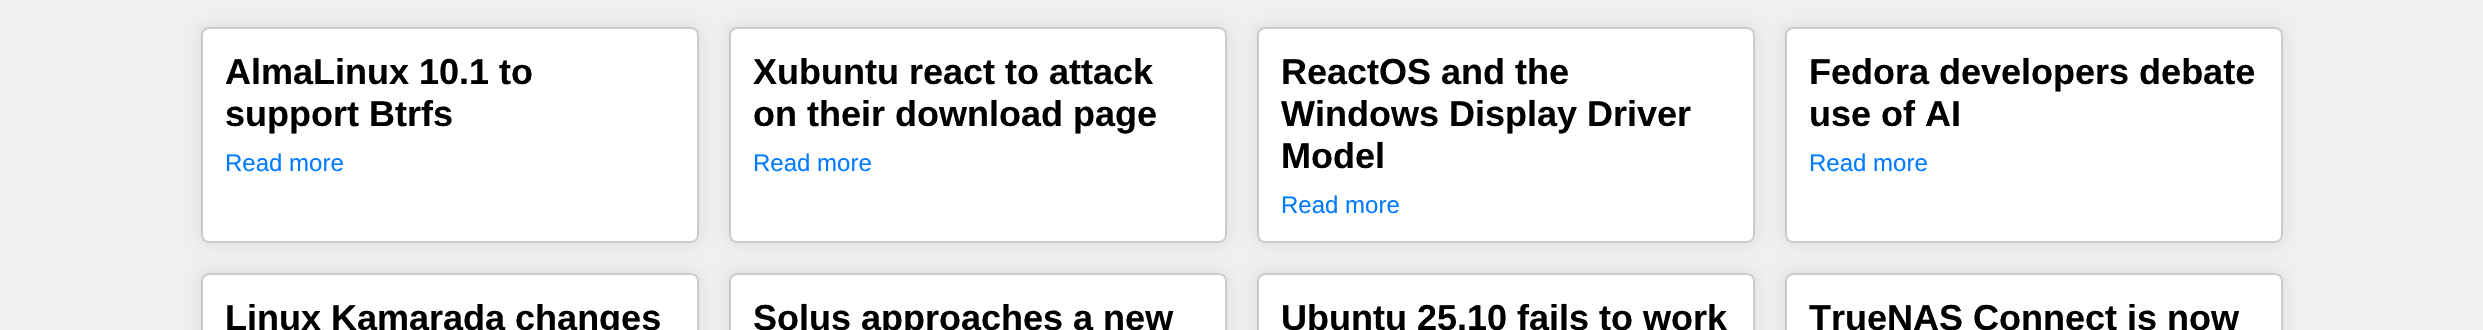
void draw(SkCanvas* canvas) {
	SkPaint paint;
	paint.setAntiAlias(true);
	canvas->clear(0xfff0f0f0);
	paint.setColor(0x1a000000);
	paint.setMaskFilter(SkMaskFilter::MakeBlur(kNormal_SkBlurStyle, 7.5));
	canvas->drawRoundRect(SkRect::MakeXYWH(201, 27, 498, 216), 8, 8, paint);
	paint.setMaskFilter(nullptr);
	paint.setColor(0xffffffff);
	canvas->drawRoundRect(SkRect::MakeXYWH(202, 28, 496, 214), 7, 7, paint);
	paint.setStroke(true);
	paint.setStrokeWidth(2);
	paint.setColor(0xffcccccc);
	canvas->drawRoundRect(SkRect::MakeXYWH(202, 28, 496, 214), 7, 7, paint);
	SkFont f1(fontMgr->matchFamilyStyle("Liberation Sans", SkFontStyle::Bold()), 36);
	f1.setSubpixel(true);
	paint.setStroke(false);
	paint.setColor(0xff000000);
	canvas->drawString("AlmaLinux 10.1 to", 225, 84, f1, paint);
	canvas->drawString("support Btrfs", 225, 126, f1, paint);
	SkFont f2(fontMgr->matchFamilyStyle("Liberation Sans", SkFontStyle::Normal()), 24);
	f2.setSubpixel(true);
	paint.setColor(0xff007bff);
	canvas->drawString("Read more", 225, 171, f2, paint);
	paint.setColor(0x1a000000);
	paint.setMaskFilter(SkMaskFilter::MakeBlur(kNormal_SkBlurStyle, 7.5));
	canvas->drawRoundRect(SkRect::MakeXYWH(729, 27, 498, 216), 8, 8, paint);
	paint.setMaskFilter(nullptr);
	paint.setColor(0xffffffff);
	canvas->drawRoundRect(SkRect::MakeXYWH(730, 28, 496, 214), 7, 7, paint);
	paint.setStroke(true);
	paint.setColor(0xffcccccc);
	canvas->drawRoundRect(SkRect::MakeXYWH(730, 28, 496, 214), 7, 7, paint);
	paint.setStroke(false);
	paint.setColor(0xff000000);
	canvas->drawString("Xubuntu react to attack", 753, 84, f1, paint);
	canvas->drawString("on their download page", 753, 126, f1, paint);
	paint.setColor(0xff007bff);
	canvas->drawString("Read more", 753, 171, f2, paint);
	paint.setColor(0x1a000000);
	paint.setMaskFilter(SkMaskFilter::MakeBlur(kNormal_SkBlurStyle, 7.5));
	canvas->drawRoundRect(SkRect::MakeXYWH(1257, 27, 498, 216), 8, 8, paint);
	paint.setMaskFilter(nullptr);
	paint.setColor(0xffffffff);
	canvas->drawRoundRect(SkRect::MakeXYWH(1258, 28, 496, 214), 7, 7, paint);
	paint.setStroke(true);
	paint.setColor(0xffcccccc);
	canvas->drawRoundRect(SkRect::MakeXYWH(1258, 28, 496, 214), 7, 7, paint);
	paint.setStroke(false);
	paint.setColor(0xff000000);
	canvas->drawString("ReactOS and the", 1281, 84, f1, paint);
	canvas->drawString("Windows Display Driver", 1281, 126, f1, paint);
	canvas->drawString("Model", 1281, 168, f1, paint);
	paint.setColor(0xff007bff);
	canvas->drawString("Read more", 1281, 213, f2, paint);
	paint.setColor(0x1a000000);
	paint.setMaskFilter(SkMaskFilter::MakeBlur(kNormal_SkBlurStyle, 7.5));
	canvas->drawRoundRect(SkRect::MakeXYWH(1785, 27, 498, 216), 8, 8, paint);
	paint.setMaskFilter(nullptr);
	paint.setColor(0xffffffff);
	canvas->drawRoundRect(SkRect::MakeXYWH(1786, 28, 496, 214), 7, 7, paint);
	paint.setStroke(true);
	paint.setColor(0xffcccccc);
	canvas->drawRoundRect(SkRect::MakeXYWH(1786, 28, 496, 214), 7, 7, paint);
	paint.setStroke(false);
	paint.setColor(0xff000000);
	canvas->drawString("Fedora developers debate", 1809, 84, f1, paint);
	canvas->drawString("use of AI", 1809, 126, f1, paint);
	paint.setColor(0xff007bff);
	canvas->drawString("Read more", 1809, 171, f2, paint);
	paint.setColor(0x1a000000);
	paint.setMaskFilter(SkMaskFilter::MakeBlur(kNormal_SkBlurStyle, 7.5));
	canvas->drawRoundRect(SkRect::MakeXYWH(201, 273, 498, 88), 8, 8, paint);
	paint.setMaskFilter(nullptr);
	paint.setColor(0xffffffff);
	canvas->drawRoundRect(SkRect::MakeXYWH(202, 274, 496, 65), 7, 7, paint);
	paint.setStroke(true);
	paint.setColor(0xffcccccc);
	canvas->drawRoundRect(SkRect::MakeXYWH(202, 274, 496, 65), 7, 7, paint);
	paint.setStroke(false);
	paint.setColor(0xff000000);
	canvas->drawString("Linux Kamarada changes", 225, 330, f1, paint);
	paint.setColor(0x1a000000);
	paint.setMaskFilter(SkMaskFilter::MakeBlur(kNormal_SkBlurStyle, 7.5));
	canvas->drawRoundRect(SkRect::MakeXYWH(729, 273, 498, 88), 8, 8, paint);
	paint.setMaskFilter(nullptr);
	paint.setColor(0xffffffff);
	canvas->drawRoundRect(SkRect::MakeXYWH(730, 274, 496, 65), 7, 7, paint);
	paint.setStroke(true);
	paint.setColor(0xffcccccc);
	canvas->drawRoundRect(SkRect::MakeXYWH(730, 274, 496, 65), 7, 7, paint);
	paint.setStroke(false);
	paint.setColor(0xff000000);
	canvas->drawString("Solus approaches a new", 753, 330, f1, paint);
	paint.setColor(0x1a000000);
	paint.setMaskFilter(SkMaskFilter::MakeBlur(kNormal_SkBlurStyle, 7.5));
	canvas->drawRoundRect(SkRect::MakeXYWH(1257, 273, 498, 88), 8, 8, paint);
	paint.setMaskFilter(nullptr);
	paint.setColor(0xffffffff);
	canvas->drawRoundRect(SkRect::MakeXYWH(1258, 274, 496, 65), 7, 7, paint);
	paint.setStroke(true);
	paint.setColor(0xffcccccc);
	canvas->drawRoundRect(SkRect::MakeXYWH(1258, 274, 496, 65), 7, 7, paint);
	paint.setStroke(false);
	paint.setColor(0xff000000);
	canvas->drawString("Ubuntu 25.10 fails to work", 1281, 330, f1, paint);
	paint.setColor(0x1a000000);
	paint.setMaskFilter(SkMaskFilter::MakeBlur(kNormal_SkBlurStyle, 7.5));
	canvas->drawRoundRect(SkRect::MakeXYWH(1785, 273, 498, 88), 8, 8, paint);
	paint.setMaskFilter(nullptr);
	paint.setColor(0xffffffff);
	canvas->drawRoundRect(SkRect::MakeXYWH(1786, 274, 496, 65), 7, 7, paint);
	paint.setStroke(true);
	paint.setColor(0xffcccccc);
	canvas->drawRoundRect(SkRect::MakeXYWH(1786, 274, 496, 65), 7, 7, paint);
	paint.setStroke(false);
	paint.setColor(0xff000000);
	canvas->drawString("TrueNAS Connect is now", 1809, 330, f1, paint);
}
